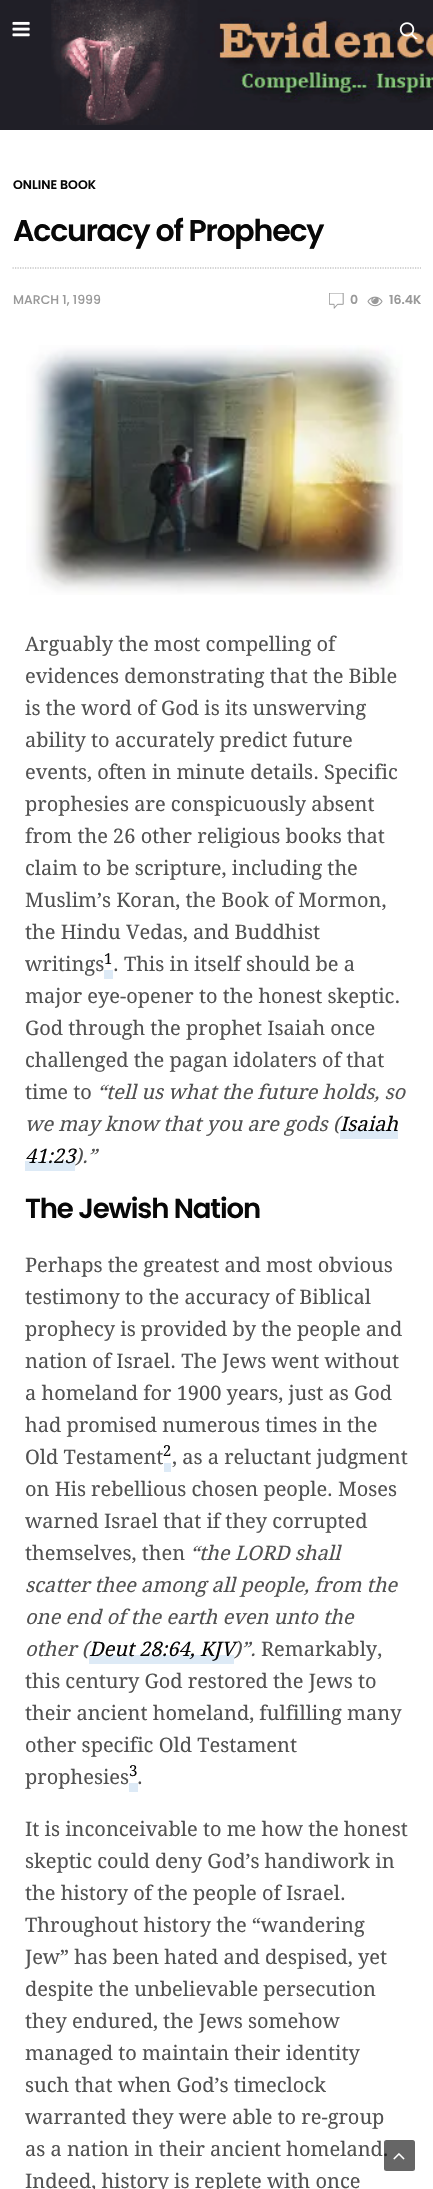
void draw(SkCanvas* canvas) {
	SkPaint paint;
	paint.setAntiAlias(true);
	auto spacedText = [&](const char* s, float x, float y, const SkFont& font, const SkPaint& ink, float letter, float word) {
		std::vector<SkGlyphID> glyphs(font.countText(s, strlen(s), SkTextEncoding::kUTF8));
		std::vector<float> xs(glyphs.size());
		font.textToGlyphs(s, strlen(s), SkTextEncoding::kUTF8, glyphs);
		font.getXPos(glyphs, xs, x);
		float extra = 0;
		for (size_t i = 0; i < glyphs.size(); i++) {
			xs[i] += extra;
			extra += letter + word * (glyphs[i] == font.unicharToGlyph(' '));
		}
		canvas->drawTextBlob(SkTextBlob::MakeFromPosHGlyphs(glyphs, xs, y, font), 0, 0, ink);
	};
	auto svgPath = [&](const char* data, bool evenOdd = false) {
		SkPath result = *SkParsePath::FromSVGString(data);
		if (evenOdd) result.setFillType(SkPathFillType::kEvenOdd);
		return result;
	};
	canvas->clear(0xffffffff);
	paint.setColor(0xff201f27);
	canvas->drawRect(SkRect::MakeXYWH(0, 0, 433, 130), paint);
	canvas->drawImageRect(SkImages::DeferredFromEncodedData(SkData::MakeFromFileName("img1.png")), SkRect::MakeXYWH(51, 0, 382, 125), SkSamplingOptions());
	canvas->drawImageRect(SkImages::DeferredFromEncodedData(SkData::MakeFromFileName("img2.png")), SkRect::MakeXYWH(12, 21, 18, 16), SkSamplingOptions());
	canvas->drawImageRect(SkImages::DeferredFromEncodedData(SkData::MakeFromFileName("img3.png")), SkRect::MakeXYWH(399, 22, 19, 17), SkSamplingOptions());
	SkFont f1(fontMgr->matchFamilyStyle("Poppins", SkFontStyle(600, SkFontStyle::kNormal_Width, SkFontStyle::kUpright_Slant)), 12.5);
	f1.setSubpixel(true);
	paint.setColor(0xff080808);
	canvas->drawString("ONLINE BOOK", 13, 189, f1, paint);
	paint.setStroke(true);
	paint.setStrokeWidth(1.2);
	paint.setColor(0xffa8a8a8);
	paint.setPathEffect(SkDashPathEffect::Make({{1.25f, 1.25f}}, 0));
	canvas->drawPath(svgPath("M12.5 268H421"), paint);
	paint.setPathEffect(nullptr);
	SkFont f2(fontMgr->matchFamilyStyle("Poppins", SkFontStyle(600, SkFontStyle::kNormal_Width, SkFontStyle::kUpright_Slant)), 30);
	f2.setSubpixel(true);
	paint.setStroke(false);
	paint.setColor(0xff080808);
	spacedText("Accuracy of Prophecy", 13, 241, f2, paint, -1.2, 0);
	SkFont f3(fontMgr->matchFamilyStyle("Poppins", SkFontStyle(500, SkFontStyle::kNormal_Width, SkFontStyle::kUpright_Slant)), 12.5);
	f3.setSubpixel(true);
	paint.setColor(0xff999999);
	canvas->drawString("MARCH 1, 1999", 13, 304, f3, paint);
	canvas->drawImageRect(SkImages::DeferredFromEncodedData(SkData::MakeFromFileName("img4.png")), SkRect::MakeXYWH(329, 293, 15, 16), SkSamplingOptions());
	canvas->drawString("0", 350, 304, f1, paint);
	canvas->drawImageRect(SkImages::DeferredFromEncodedData(SkData::MakeFromFileName("img5.png")), SkRect::MakeXYWH(367, 296, 16, 11), SkSamplingOptions());
	canvas->drawString("16.4K", 389, 304, f1, paint);
	canvas->drawImageRect(SkImages::DeferredFromEncodedData(SkData::MakeFromFileName("img6.png")), SkRect::MakeXYWH(26, 345, 377, 250), SkSamplingOptions());
	SkFont f4(fontMgr->matchFamilyStyle("Droid Serif", SkFontStyle::Normal()), 20);
	f4.setSubpixel(true);
	paint.setColor(0xff525252);
	canvas->drawString("Arguably the most compelling of", 25, 651, f4, paint);
	canvas->drawString("evidences demonstrating that the Bible", 25, 683, f4, paint);
	canvas->drawString("is the word of God is its unswerving", 25, 715, f4, paint);
	canvas->drawString("ability to accurately predict future", 25, 747, f4, paint);
	canvas->drawString("events, often in minute details. Specific", 25, 779, f4, paint);
	canvas->drawString("prophesies are conspicuously absent", 25, 811, f4, paint);
	canvas->drawString("from the 26 other religious books that", 25, 843, f4, paint);
	canvas->drawString("claim to be scripture, including the", 25, 875, f4, paint);
	canvas->drawString("Muslim’s Koran, the Book of Mormon,", 25, 907, f4, paint);
	canvas->drawString("the Hindu Vedas, and Buddhist", 25, 939, f4, paint);
	canvas->drawString("writings", 25, 971, f4, paint);
	SkFont f5(fontMgr->matchFamilyStyle("Droid Serif", SkFontStyle::Normal()), 15);
	f5.setSubpixel(true);
	paint.setColor(0xff080808);
	canvas->drawString("1", 104, 964, f5, paint);
	paint.setColor(0xffddeaf6);
	canvas->drawRect(SkRect::MakeXYWH(104, 970, 9, 9), paint);
	paint.setColor(0xff525252);
	canvas->drawString(". This in itself should be a", 113, 971, f4, paint);
	canvas->drawString("major eye-opener to the honest skeptic.", 25, 1003, f4, paint);
	canvas->drawString("God through the prophet Isaiah once", 25, 1035, f4, paint);
	canvas->drawString("challenged the pagan idolaters of that", 25, 1067, f4, paint);
	canvas->drawString("time to", 25, 1099, f4, paint);
	SkFont f6(fontMgr->matchFamilyStyle("Droid Serif", SkFontStyle::Italic()), 20);
	f6.setSubpixel(true);
	canvas->drawString("“tell us what the future holds, so", 97, 1099, f6, paint);
	canvas->drawString("we may know that you are gods (", 25, 1131, f6, paint);
	paint.setColor(0xffddeaf6);
	canvas->drawRect(SkRect::MakeXYWH(340, 1130, 58, 9), paint);
	paint.setColor(0xff080808);
	canvas->drawString("Isaiah", 340, 1131, f6, paint);
	paint.setColor(0xffddeaf6);
	canvas->drawRect(SkRect::MakeXYWH(25, 1161, 50, 10), paint);
	paint.setColor(0xff080808);
	canvas->drawString("41:23", 25, 1163, f6, paint);
	paint.setColor(0xff525252);
	canvas->drawString(").”", 75, 1163, f6, paint);
	SkFont f7(fontMgr->matchFamilyStyle("Poppins", SkFontStyle(600, SkFontStyle::kNormal_Width, SkFontStyle::kUpright_Slant)), 27.5);
	f7.setSubpixel(true);
	paint.setColor(0xff080808);
	spacedText("The Jewish Nation", 25, 1218, f7, paint, -1.1, 0);
	paint.setColor(0xff525252);
	canvas->drawString("Perhaps the greatest and most obvious", 25, 1272, f4, paint);
	canvas->drawString("testimony to the accuracy of Biblical", 25, 1304, f4, paint);
	canvas->drawString("prophecy is provided by the people and", 25, 1336, f4, paint);
	canvas->drawString("nation of Israel. The Jews went without", 25, 1368, f4, paint);
	canvas->drawString("a homeland for 1900 years, just as God", 25, 1400, f4, paint);
	canvas->drawString("had promised numerous times in the", 25, 1432, f4, paint);
	canvas->drawString("Old Testament", 25, 1464, f4, paint);
	paint.setColor(0xff080808);
	canvas->drawString("2", 163, 1456, f5, paint);
	paint.setColor(0xffddeaf6);
	canvas->drawRect(SkRect::MakeXYWH(164, 1463, 7, 9), paint);
	paint.setColor(0xff525252);
	canvas->drawString(", as a reluctant judgment", 172, 1464, f4, paint);
	canvas->drawString("on His rebellious chosen people. Moses", 25, 1496, f4, paint);
	canvas->drawString("warned Israel that if they corrupted", 25, 1528, f4, paint);
	canvas->drawString("themselves, then", 25, 1560, f4, paint);
	canvas->drawString("“the LORD shall", 190, 1560, f6, paint);
	canvas->drawString("scatter thee among all people, from the", 25, 1592, f6, paint);
	canvas->drawString("one end of the earth even unto the", 25, 1624, f6, paint);
	canvas->drawString("other (", 25, 1656, f6, paint);
	paint.setColor(0xffddeaf6);
	canvas->drawRect(SkRect::MakeXYWH(89, 1655, 145, 9), paint);
	paint.setColor(0xff080808);
	canvas->drawString("Deut 28:64, KJV", 89, 1656, f6, paint);
	paint.setColor(0xff525252);
	canvas->drawString(")”.", 234, 1656, f6, paint);
	canvas->drawString("Remarkably,", 261, 1656, f4, paint);
	canvas->drawString("this century God restored the Jews to", 25, 1688, f4, paint);
	canvas->drawString("their ancient homeland, fulfilling many", 25, 1720, f4, paint);
	canvas->drawString("other specific Old Testament", 25, 1752, f4, paint);
	canvas->drawString("prophesies", 25, 1784, f4, paint);
	paint.setColor(0xff080808);
	canvas->drawString("3", 129, 1776, f5, paint);
	paint.setColor(0xffddeaf6);
	canvas->drawRect(SkRect::MakeXYWH(129, 1783, 9, 9), paint);
	paint.setColor(0xff525252);
	canvas->drawString(".", 137, 1784, f4, paint);
	canvas->drawString("It is inconceivable to me how the honest", 25, 1836, f4, paint);
	canvas->drawString("skeptic could deny God’s handiwork in", 25, 1868, f4, paint);
	canvas->drawString("the history of the people of Israel.", 25, 1900, f4, paint);
	canvas->drawString("Throughout history the “wandering", 25, 1932, f4, paint);
	canvas->drawString("Jew” has been hated and despised, yet", 25, 1964, f4, paint);
	canvas->drawString("despite the unbelievable persecution", 25, 1996, f4, paint);
	canvas->drawString("they endured, the Jews somehow", 25, 2028, f4, paint);
	canvas->drawString("managed to maintain their identity", 25, 2060, f4, paint);
	canvas->drawString("such that when God’s timeclock", 25, 2092, f4, paint);
	canvas->drawString("warranted they were able to re-group", 25, 2124, f4, paint);
	canvas->drawString("as a nation in their ancient homeland.", 25, 2156, f4, paint);
	canvas->drawString("Indeed, history is replete with once", 25, 2188, f4, paint);
	paint.setColor(0x99000000);
	canvas->drawRoundRect(SkRect::MakeXYWH(384, 2140, 31, 31), 2.5, 2.5, paint);
	canvas->drawImageRect(SkImages::DeferredFromEncodedData(SkData::MakeFromFileName("img7.png")), SkRect::MakeXYWH(393, 2153, 12, 7), SkSamplingOptions());
}
